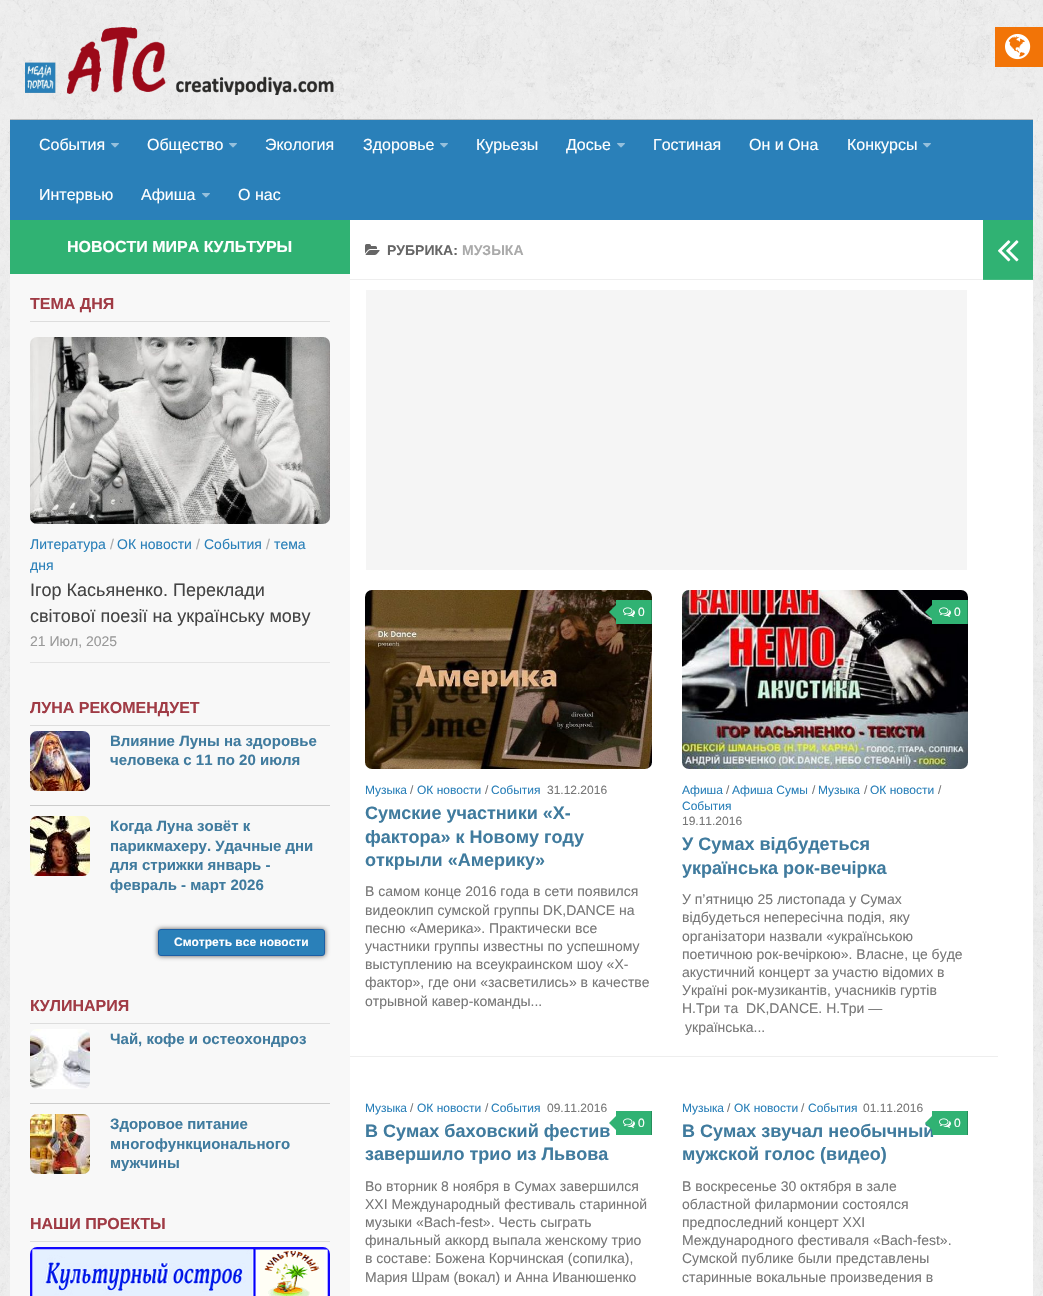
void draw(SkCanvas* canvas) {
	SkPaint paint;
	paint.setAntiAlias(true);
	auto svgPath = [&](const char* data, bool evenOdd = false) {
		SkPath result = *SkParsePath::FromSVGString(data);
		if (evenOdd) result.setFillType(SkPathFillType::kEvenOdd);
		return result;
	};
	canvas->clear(0xffffffff);
	canvas->drawImageRect(SkImages::DeferredFromEncodedData(SkData::MakeFromFileName("img1.png")), SkRect::MakeXYWH(0, 0, 1043, 1296), SkSamplingOptions());
	paint.setColor(0xfff27407);
	canvas->drawRect(SkRect::MakeXYWH(995, 27, 48, 40), paint);
	canvas->drawImageRect(SkImages::DeferredFromEncodedData(SkData::MakeFromFileName("img2.png")), SkRect::MakeXYWH(1005, 33, 26, 27), SkSamplingOptions());
	canvas->drawImageRect(SkImages::DeferredFromEncodedData(SkData::MakeFromFileName("img3.png")), SkRect::MakeXYWH(25, 27, 309, 68), SkSamplingOptions());
	paint.setColor(0x33000000);
	canvas->drawRect(SkRect::MakeXYWH(10, 119, 1023, 1), paint);
	paint.setColor(0xff2a80b9);
	canvas->drawRect(SkRect::MakeXYWH(10, 120, 1023, 100), paint);
	SkFont f1(fontMgr->matchFamilyStyle("Liberation Sans", SkFontStyle::Normal()), 16);
	f1.setSubpixel(true);
	paint.setColor(0xffffffff);
	canvas->drawString("События", 39, 150, f1, paint);
	canvas->drawImageRect(SkImages::DeferredFromEncodedData(SkData::MakeFromFileName("img4.png")), SkRect::MakeXYWH(111, 143, 8, 5), SkSamplingOptions());
	canvas->drawString("Общество", 147, 150, f1, paint);
	canvas->drawImageRect(SkImages::DeferredFromEncodedData(SkData::MakeFromFileName("img4.png")), SkRect::MakeXYWH(229, 143, 8, 5), SkSamplingOptions());
	canvas->drawString("Экология", 265, 150, f1, paint);
	canvas->drawString("Здоровье", 363, 150, f1, paint);
	canvas->drawImageRect(SkImages::DeferredFromEncodedData(SkData::MakeFromFileName("img4.png")), SkRect::MakeXYWH(440, 143, 8, 5), SkSamplingOptions());
	canvas->drawString("Курьезы", 476, 150, f1, paint);
	canvas->drawString("Досье", 566, 150, f1, paint);
	canvas->drawImageRect(SkImages::DeferredFromEncodedData(SkData::MakeFromFileName("img4.png")), SkRect::MakeXYWH(617, 143, 8, 5), SkSamplingOptions());
	canvas->drawString("Гостиная", 653, 150, f1, paint);
	canvas->drawString("Он и Она", 749, 150, f1, paint);
	canvas->drawString("Конкурсы", 847, 150, f1, paint);
	canvas->drawImageRect(SkImages::DeferredFromEncodedData(SkData::MakeFromFileName("img4.png")), SkRect::MakeXYWH(923, 143, 8, 5), SkSamplingOptions());
	canvas->drawString("Интервью", 39, 200, f1, paint);
	canvas->drawString("Афиша", 141, 200, f1, paint);
	canvas->drawImageRect(SkImages::DeferredFromEncodedData(SkData::MakeFromFileName("img4.png")), SkRect::MakeXYWH(202, 193, 8, 5), SkSamplingOptions());
	canvas->drawString("О нас", 238, 200, f1, paint);
	canvas->drawRect(SkRect::MakeXYWH(350, 220, 683, 1076), paint);
	paint.setColor(0xfff8f8f8);
	canvas->drawRect(SkRect::MakeXYWH(10, 274, 340, 1022), paint);
	paint.setColor(0xff30b273);
	canvas->drawRect(SkRect::MakeXYWH(10, 220, 340, 54), paint);
	SkFont f2(fontMgr->matchFamilyStyle("Liberation Sans", SkFontStyle::Bold()), 16);
	f2.setSubpixel(true);
	paint.setColor(0xffffffff);
	canvas->drawString("НОВОСТИ МИРА КУЛЬТУРЫ", 67, 252, f2, paint);
	paint.setColor(0xffdddddd);
	canvas->drawRect(SkRect::MakeXYWH(30, 321, 300, 1), paint);
	paint.setColor(0xffa03b45);
	canvas->drawString("ТЕМА ДНЯ", 30, 309, f2, paint);
	paint.setColor(0xffe4e4e4);
	canvas->drawRect(SkRect::MakeXYWH(30, 662, 300, 1), paint);
	canvas->drawImageRect(SkImages::DeferredFromEncodedData(SkData::MakeFromFileName("img5.png")), SkRect::MakeXYWH(30, 337, 300, 187), SkSamplingOptions());
	SkFont f3(fontMgr->matchFamilyStyle("Liberation Sans", SkFontStyle::Normal()), 14);
	f3.setSubpixel(true);
	paint.setColor(0xff2a80b9);
	canvas->drawString("Литература", 30, 549, f3, paint);
	paint.setColor(0xffaaaaaa);
	canvas->drawString("/", 110, 549, f3, paint);
	paint.setColor(0xff2a80b9);
	canvas->drawString("ОК новости", 117, 549, f3, paint);
	paint.setColor(0xffaaaaaa);
	canvas->drawString("/", 196, 549, f3, paint);
	paint.setColor(0xff2a80b9);
	canvas->drawString("События", 204, 549, f3, paint);
	paint.setColor(0xffaaaaaa);
	canvas->drawString("/", 266, 549, f3, paint);
	paint.setColor(0xff2a80b9);
	canvas->drawString("тема", 274, 549, f3, paint);
	canvas->drawString("дня", 30, 570, f3, paint);
	SkFont f4(fontMgr->matchFamilyStyle("Liberation Sans", SkFontStyle::Normal()), 18);
	f4.setSubpixel(true);
	paint.setColor(0xff444444);
	canvas->drawString("Ігор Касьяненко. Переклади", 30, 596, f4, paint);
	canvas->drawString("світової поезії на українську мову", 30, 622, f4, paint);
	paint.setColor(0xff999999);
	canvas->drawString("21 Июл, 2025", 30, 646, f3, paint);
	paint.setColor(0xffdddddd);
	canvas->drawRect(SkRect::MakeXYWH(30, 725, 300, 1), paint);
	paint.setColor(0xffa03b45);
	canvas->drawString("ЛУНА РЕКОМЕНДУЕТ", 30, 713, f2, paint);
	paint.setColor(0xffcccccc);
	canvas->drawRect(SkRect::MakeXYWH(30, 805, 300, 1), paint);
	canvas->drawImageRect(SkImages::DeferredFromEncodedData(SkData::MakeFromFileName("img6.png")), SkRect::MakeXYWH(30, 731, 60, 60), SkSamplingOptions());
	SkFont f5(fontMgr->matchFamilyStyle("Liberation Sans", SkFontStyle::Bold()), 15);
	f5.setSubpixel(true);
	paint.setColor(0xff407b9e);
	canvas->drawString("Влияние Луны на здоровье", 110, 746, f5, paint);
	canvas->drawString("человека с 11 по 20 июля", 110, 765, f5, paint);
	canvas->drawImageRect(SkImages::DeferredFromEncodedData(SkData::MakeFromFileName("img7.png")), SkRect::MakeXYWH(30, 816, 60, 60), SkSamplingOptions());
	canvas->drawString("Когда Луна зовёт к", 110, 831, f5, paint);
	canvas->drawString("парикмахеру. Удачные дни", 110, 851, f5, paint);
	canvas->drawString("для стрижки январь -", 110, 870, f5, paint);
	canvas->drawString("февраль - март 2026", 110, 890, f5, paint);
	paint.setColor(0xff555555);
	paint.setMaskFilter(SkMaskFilter::MakeBlur(kNormal_SkBlurStyle, 2.5));
	canvas->drawRoundRect(SkRect::MakeXYWH(158, 929, 167, 27), 3, 3, paint);
	paint.setMaskFilter(nullptr);
	paint.setColor(0xff2a80b9);
	canvas->drawRoundRect(SkRect::MakeXYWH(158.5, 929.5, 166, 26), 2.5, 2.5, paint);
	paint.setStroke(true);
	paint.setStrokeWidth(1);
	paint.setColor(0xff1c5fa5);
	canvas->drawRoundRect(SkRect::MakeXYWH(158.5, 929.5, 166, 26), 2.5, 2.5, paint);
	SkFont f6(fontMgr->matchFamilyStyle("Liberation Sans", SkFontStyle::Bold()), 12);
	f6.setSubpixel(true);
	paint.setStroke(false);
	paint.setColor(0xffffffff);
	canvas->drawString("Смотреть все новости", 174, 946, f6, paint);
	paint.setColor(0xffdddddd);
	canvas->drawRect(SkRect::MakeXYWH(30, 1023, 300, 1), paint);
	paint.setColor(0xffa03b45);
	canvas->drawString("КУЛИНАРИЯ", 30, 1011, f2, paint);
	paint.setColor(0xffcccccc);
	canvas->drawRect(SkRect::MakeXYWH(30, 1103, 300, 1), paint);
	canvas->drawImageRect(SkImages::DeferredFromEncodedData(SkData::MakeFromFileName("img8.png")), SkRect::MakeXYWH(30, 1029, 60, 60), SkSamplingOptions());
	paint.setColor(0xff407b9e);
	canvas->drawString("Чай, кофе и остеохондроз", 110, 1044, f5, paint);
	canvas->drawImageRect(SkImages::DeferredFromEncodedData(SkData::MakeFromFileName("img9.png")), SkRect::MakeXYWH(30, 1114, 60, 60), SkSamplingOptions());
	canvas->drawString("Здоровое питание", 110, 1129, f5, paint);
	canvas->drawString("многофункционального", 110, 1149, f5, paint);
	canvas->drawString("мужчины", 110, 1168, f5, paint);
	paint.setColor(0xffdddddd);
	canvas->drawRect(SkRect::MakeXYWH(30, 1241, 300, 1), paint);
	paint.setColor(0xffa03b45);
	canvas->drawString("НАШИ ПРОЕКТЫ", 30, 1229, f2, paint);
	canvas->drawImageRect(SkImages::DeferredFromEncodedData(SkData::MakeFromFileName("img10.png")), SkRect::MakeXYWH(30, 1247, 300, 49), SkSamplingOptions());
	paint.setColor(0xffeeeeee);
	canvas->drawRect(SkRect::MakeXYWH(350, 279, 633, 1), paint);
	canvas->drawImageRect(SkImages::DeferredFromEncodedData(SkData::MakeFromFileName("img11.png")), SkRect::MakeXYWH(365, 244, 15, 11), SkSamplingOptions());
	SkFont f7(fontMgr->matchFamilyStyle("Liberation Sans", SkFontStyle::Bold()), 14);
	f7.setSubpixel(true);
	paint.setColor(0xff666666);
	canvas->drawString("РУБРИКА:", 387, 255, f7, paint);
	paint.setColor(0xffaaaaaa);
	canvas->drawString("МУЗЫКА", 462, 255, f7, paint);
	paint.setColor(0xfff5f5f5);
	canvas->drawRect(SkRect::MakeXYWH(366, 290, 601, 280), paint);
	paint.setColor(0xffeeeeee);
	canvas->drawRect(SkRect::MakeXYWH(350, 1056, 648, 1), paint);
	canvas->drawImageRect(SkImages::DeferredFromEncodedData(SkData::MakeFromFileName("img12.png")), SkRect::MakeXYWH(365, 590, 287, 179), SkSamplingOptions());
	paint.setColor(0xff30b273);
	canvas->drawRect(SkRect::MakeXYWH(616, 600, 35, 24), paint);
	paint.setColor(0xff268e5c);
	canvas->drawRect(SkRect::MakeXYWH(651, 600, 1, 24), paint);
	paint.setColor(0xff30b273);
	canvas->drawPath(svgPath("M618 603V621L609 612Z"), paint);
	canvas->drawImageRect(SkImages::DeferredFromEncodedData(SkData::MakeFromFileName("img13.png")), SkRect::MakeXYWH(623, 607, 12, 10), SkSamplingOptions());
	SkFont f8(fontMgr->matchFamilyStyle("Liberation Sans", SkFontStyle::Normal()), 12);
	f8.setSubpixel(true);
	paint.setColor(0xffffffff);
	canvas->drawString("0", 638, 616, f8, paint);
	paint.setColor(0xff2a80b9);
	canvas->drawString("Музыка", 365, 794, f8, paint);
	paint.setColor(0xff777777);
	canvas->drawString("/", 410, 794, f8, paint);
	paint.setColor(0xff2a80b9);
	canvas->drawString("ОК новости", 417, 794, f8, paint);
	paint.setColor(0xff777777);
	canvas->drawString("/", 485, 794, f8, paint);
	paint.setColor(0xff2a80b9);
	canvas->drawString("События", 491, 794, f8, paint);
	paint.setColor(0xff777777);
	canvas->drawString("31.12.2016", 547, 794, f8, paint);
	SkFont f9(fontMgr->matchFamilyStyle("Liberation Sans", SkFontStyle::Bold()), 18);
	f9.setSubpixel(true);
	paint.setColor(0xff407b9e);
	canvas->drawString("Сумские участники «Х-", 365, 819, f9, paint);
	canvas->drawString("фактора» к Новому году", 365, 843, f9, paint);
	canvas->drawString("открыли «Америку»", 365, 866, f9, paint);
	paint.setColor(0xff777777);
	canvas->drawString("В самом конце 2016 года в сети появился", 365, 896, f3, paint);
	canvas->drawString("видеоклип сумской группы DK,DANCE на", 365, 915, f3, paint);
	canvas->drawString("песню «Америка». Практически все", 365, 933, f3, paint);
	canvas->drawString("участники группы известны по успешному", 365, 951, f3, paint);
	canvas->drawString("выступлению на всеукраинском шоу «Х-", 365, 969, f3, paint);
	canvas->drawString("фактор», где они «засветились» в качестве", 365, 987, f3, paint);
	canvas->drawString("отрывной кавер-команды...", 365, 1006, f3, paint);
	canvas->drawImageRect(SkImages::DeferredFromEncodedData(SkData::MakeFromFileName("img14.png")), SkRect::MakeXYWH(682, 590, 286, 179), SkSamplingOptions());
	paint.setColor(0xff30b273);
	canvas->drawRect(SkRect::MakeXYWH(932, 600, 35, 24), paint);
	paint.setColor(0xff268e5c);
	canvas->drawRect(SkRect::MakeXYWH(967, 600, 1, 24), paint);
	paint.setColor(0xff30b273);
	canvas->drawPath(svgPath("M934 603V621L925 612Z"), paint);
	canvas->drawImageRect(SkImages::DeferredFromEncodedData(SkData::MakeFromFileName("img13.png")), SkRect::MakeXYWH(939, 607, 12, 10), SkSamplingOptions());
	paint.setColor(0xffffffff);
	canvas->drawString("0", 954, 616, f8, paint);
	paint.setColor(0xff2a80b9);
	canvas->drawString("Афиша", 682, 794, f8, paint);
	paint.setColor(0xff777777);
	canvas->drawString("/", 726, 794, f8, paint);
	paint.setColor(0xff2a80b9);
	canvas->drawString("Афиша Сумы", 732, 794, f8, paint);
	paint.setColor(0xff777777);
	canvas->drawString("/", 812, 794, f8, paint);
	paint.setColor(0xff2a80b9);
	canvas->drawString("Музыка", 818, 794, f8, paint);
	paint.setColor(0xff777777);
	canvas->drawString("/", 864, 794, f8, paint);
	paint.setColor(0xff2a80b9);
	canvas->drawString("ОК новости", 870, 794, f8, paint);
	paint.setColor(0xff777777);
	canvas->drawString("/", 938, 794, f8, paint);
	paint.setColor(0xff2a80b9);
	canvas->drawString("События", 682, 810, f8, paint);
	paint.setColor(0xff777777);
	canvas->drawString("19.11.2016", 682, 825, f8, paint);
	paint.setColor(0xff407b9e);
	canvas->drawString("У Сумах відбудеться", 682, 850, f9, paint);
	canvas->drawString("українська рок-вечірка", 682, 874, f9, paint);
	paint.setColor(0xff777777);
	canvas->drawString("У п’ятницю 25 листопада у Сумах", 682, 904, f3, paint);
	canvas->drawString("відбудеться непересічна подія, яку", 682, 922, f3, paint);
	canvas->drawString("організатори назвали «українською", 682, 941, f3, paint);
	canvas->drawString("поетичною рок-вечіркою». Власне, це буде", 682, 959, f3, paint);
	canvas->drawString("акустичний концерт за участю відомих в", 682, 977, f3, paint);
	canvas->drawString("Україні рок-музикантів, учасників гуртів", 682, 995, f3, paint);
	canvas->drawString("Н.Три та  DK,DANCE. Н.Три —", 682, 1013, f3, paint);
	canvas->drawString("українська...", 685, 1032, f3, paint);
	paint.setColor(0xff2a80b9);
	canvas->drawString("Музыка", 365, 1112, f8, paint);
	paint.setColor(0xff777777);
	canvas->drawString("/", 410, 1112, f8, paint);
	paint.setColor(0xff2a80b9);
	canvas->drawString("ОК новости", 417, 1112, f8, paint);
	paint.setColor(0xff777777);
	canvas->drawString("/", 485, 1112, f8, paint);
	paint.setColor(0xff2a80b9);
	canvas->drawString("События", 491, 1112, f8, paint);
	paint.setColor(0xff777777);
	canvas->drawString("09.11.2016", 547, 1112, f8, paint);
	paint.setColor(0xff407b9e);
	canvas->drawString("В Сумах баховский фестив", 365, 1137, f9, paint);
	canvas->drawString("завершило трио из Львова", 365, 1160, f9, paint);
	paint.setColor(0xff30b273);
	canvas->drawRect(SkRect::MakeXYWH(616, 1111, 35, 24), paint);
	paint.setColor(0xff268e5c);
	canvas->drawRect(SkRect::MakeXYWH(651, 1111, 1, 24), paint);
	paint.setColor(0xff30b273);
	canvas->drawPath(svgPath("M618 1114V1132L609 1123Z"), paint);
	canvas->drawImageRect(SkImages::DeferredFromEncodedData(SkData::MakeFromFileName("img13.png")), SkRect::MakeXYWH(623, 1118, 12, 10), SkSamplingOptions());
	paint.setColor(0xffffffff);
	canvas->drawString("0", 638, 1127, f8, paint);
	paint.setColor(0xff777777);
	canvas->drawString("Во вторник 8 ноября в Сумах завершился", 365, 1191, f3, paint);
	canvas->drawString("XXI Международный фестиваль старинной", 365, 1209, f3, paint);
	canvas->drawString("музыки «Bach-fest». Честь сыграть", 365, 1227, f3, paint);
	canvas->drawString("финальный аккорд выпала женскому трио", 365, 1245, f3, paint);
	canvas->drawString("в составе: Божена Корчинская (сопилка),", 365, 1263, f3, paint);
	canvas->drawString("Мария Шрам (вокал) и Анна Иванюшенко", 365, 1282, f3, paint);
	paint.setColor(0xff2a80b9);
	canvas->drawString("Музыка", 682, 1112, f8, paint);
	paint.setColor(0xff777777);
	canvas->drawString("/", 727, 1112, f8, paint);
	paint.setColor(0xff2a80b9);
	canvas->drawString("ОК новости", 734, 1112, f8, paint);
	paint.setColor(0xff777777);
	canvas->drawString("/", 801, 1112, f8, paint);
	paint.setColor(0xff2a80b9);
	canvas->drawString("События", 808, 1112, f8, paint);
	paint.setColor(0xff777777);
	canvas->drawString("01.11.2016", 863, 1112, f8, paint);
	paint.setColor(0xff407b9e);
	canvas->drawString("В Сумах звучал необычный", 682, 1137, f9, paint);
	canvas->drawString("мужской голос (видео)", 682, 1160, f9, paint);
	paint.setColor(0xff30b273);
	canvas->drawRect(SkRect::MakeXYWH(932, 1111, 35, 24), paint);
	paint.setColor(0xff268e5c);
	canvas->drawRect(SkRect::MakeXYWH(967, 1111, 1, 24), paint);
	paint.setColor(0xff30b273);
	canvas->drawPath(svgPath("M934 1114V1132L925 1123Z"), paint);
	canvas->drawImageRect(SkImages::DeferredFromEncodedData(SkData::MakeFromFileName("img13.png")), SkRect::MakeXYWH(939, 1118, 12, 10), SkSamplingOptions());
	paint.setColor(0xffffffff);
	canvas->drawString("0", 954, 1127, f8, paint);
	paint.setColor(0xff777777);
	canvas->drawString("В воскресенье 30 октября в зале", 682, 1191, f3, paint);
	canvas->drawString("областной филармонии состоялся", 682, 1209, f3, paint);
	canvas->drawString("предпоследний концерт XXI", 682, 1227, f3, paint);
	canvas->drawString("Международного фестиваля «Bach-fest».", 682, 1245, f3, paint);
	canvas->drawString("Сумской публике были представлены", 682, 1263, f3, paint);
	canvas->drawString("старинные вокальные произведения в", 682, 1282, f3, paint);
	paint.setColor(0xff30b273);
	canvas->drawRect(SkRect::MakeXYWH(983, 220, 50, 59), paint);
	paint.setColor(0xff45ba81);
	canvas->drawRect(SkRect::MakeXYWH(983, 279, 50, 1), paint);
	canvas->drawImageRect(SkImages::DeferredFromEncodedData(SkData::MakeFromFileName("img15.png")), SkRect::MakeXYWH(998, 240, 21, 22), SkSamplingOptions());
}
